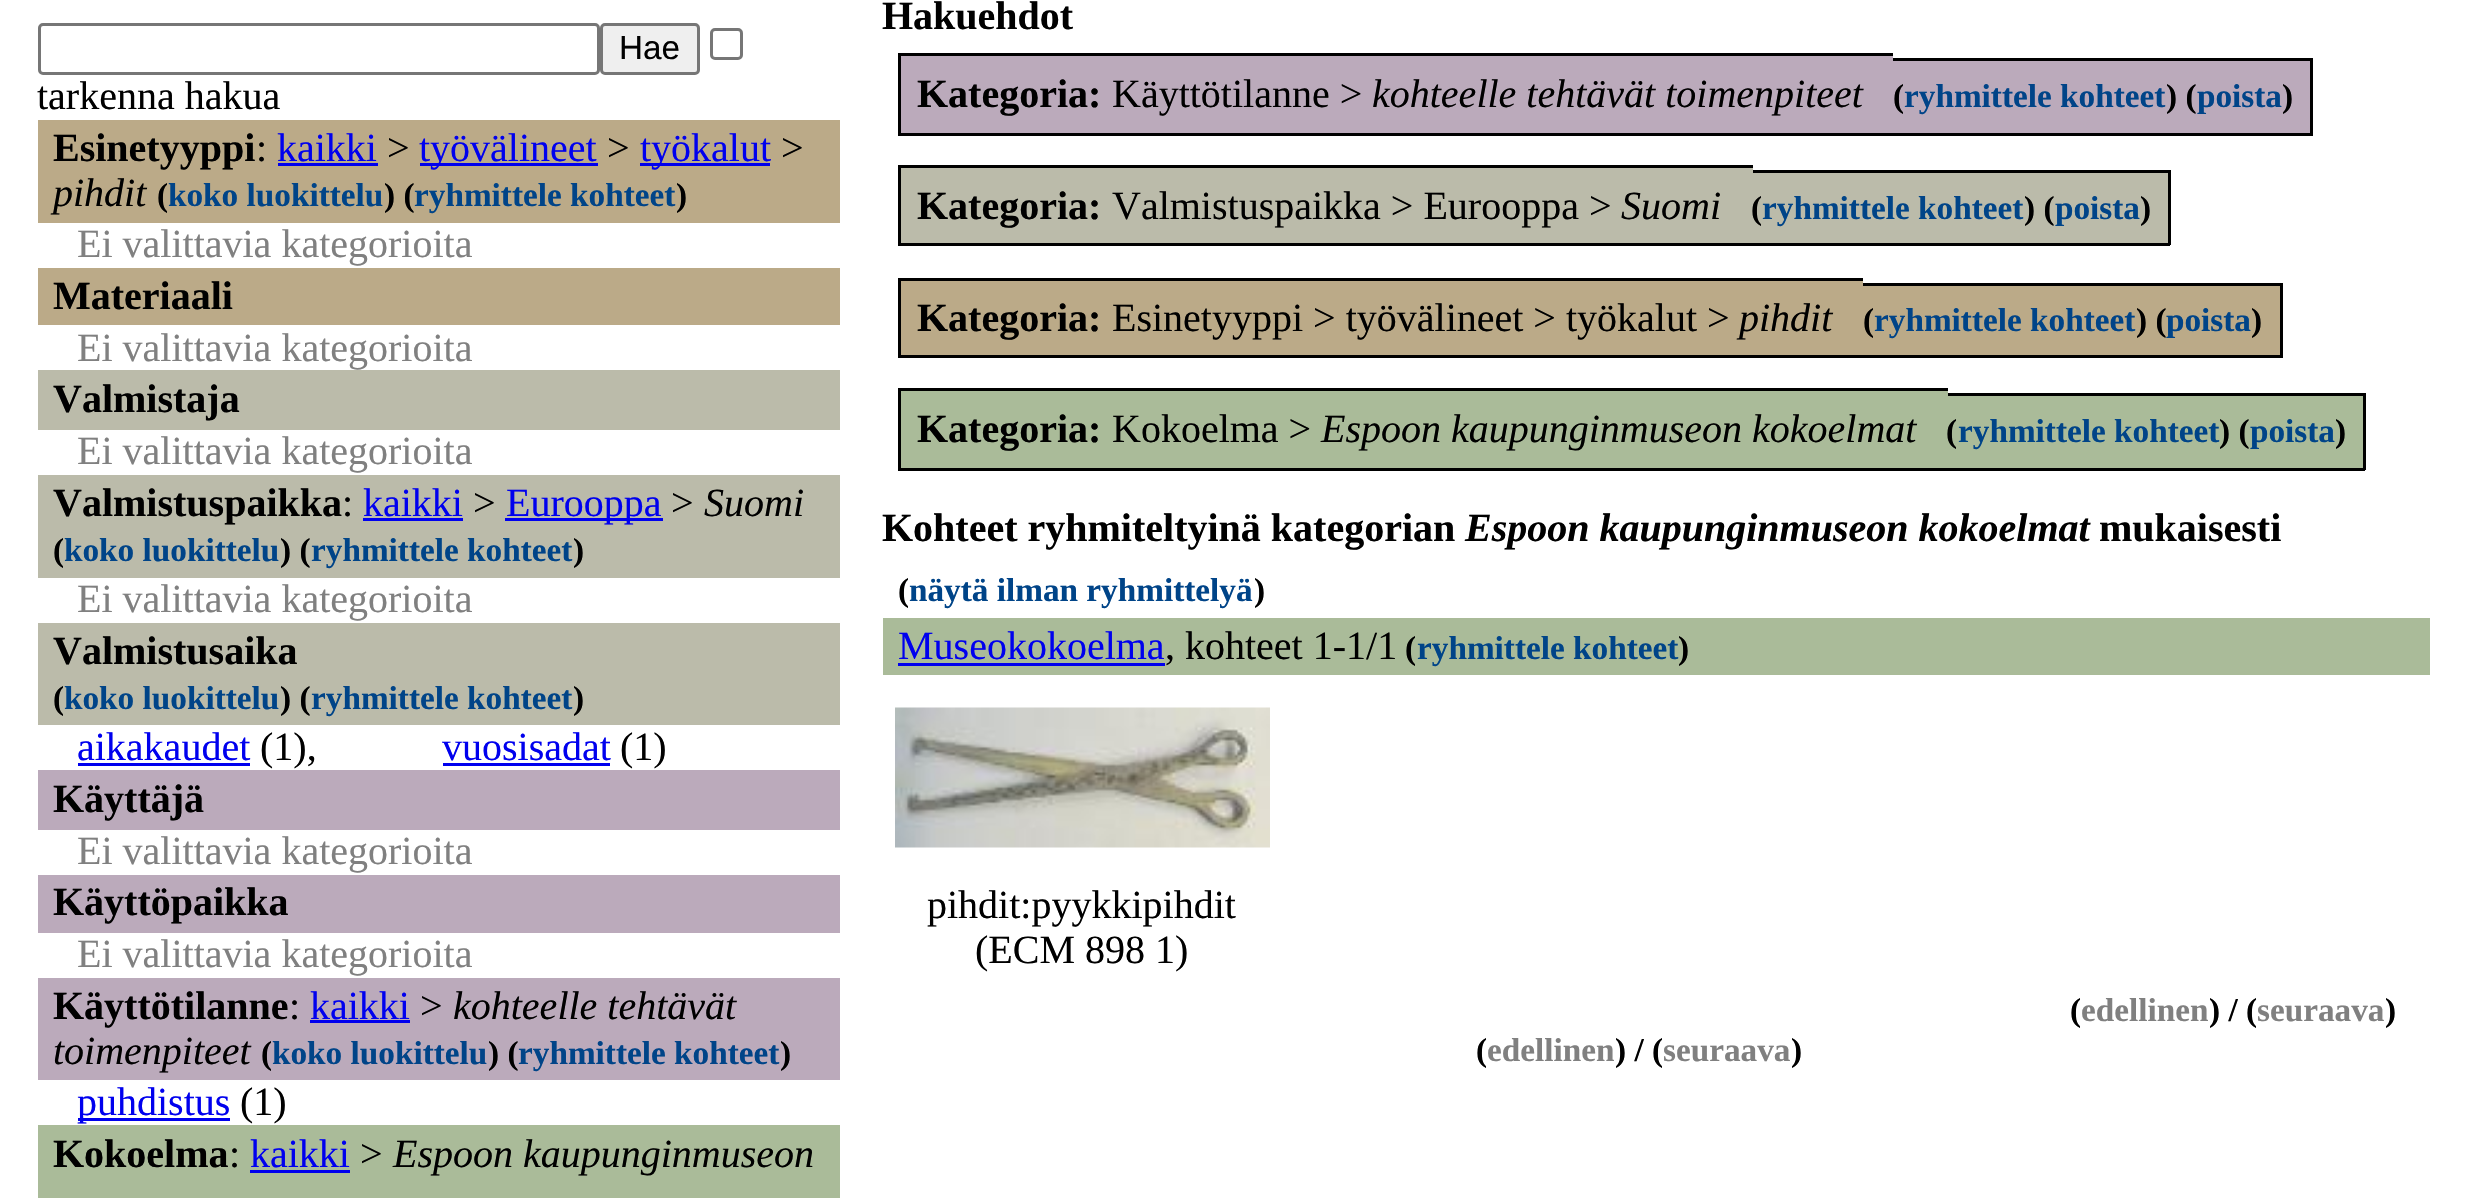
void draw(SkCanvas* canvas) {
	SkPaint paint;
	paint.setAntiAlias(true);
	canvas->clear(0xffffffff);
	paint.setStroke(true);
	paint.setStrokeWidth(3);
	paint.setColor(0xff767676);
	canvas->drawRoundRect(SkRect::MakeXYWH(39.5, 24.5, 559, 49), 3.5, 3.5, paint);
	paint.setStroke(false);
	paint.setColor(0xffefefef);
	canvas->drawRoundRect(SkRect::MakeXYWH(601.5, 24.5, 97, 49), 3.5, 3.5, paint);
	paint.setStroke(true);
	paint.setColor(0xff767676);
	canvas->drawRoundRect(SkRect::MakeXYWH(601.5, 24.5, 97, 49), 3.5, 3.5, paint);
	SkFont f1(fontMgr->matchFamilyStyle("Liberation Sans", SkFontStyle::Normal()), 33.25);
	f1.setSubpixel(true);
	paint.setStroke(false);
	paint.setColor(0xff000000);
	canvas->drawString("Hae", 619, 59, f1, paint);
	paint.setStroke(true);
	paint.setColor(0xff767676);
	canvas->drawRoundRect(SkRect::MakeXYWH(711.5, 29.5, 30, 29), 3.5, 3.5, paint);
	SkFont f2(fontMgr->matchFamilyStyle("Liberation Serif", SkFontStyle::Normal()), 40);
	f2.setSubpixel(true);
	paint.setStroke(false);
	paint.setColor(0xff000000);
	canvas->drawString("tarkenna hakua", 37, 109, f2, paint);
	paint.setColor(0xffbbaa88);
	canvas->drawRect(SkRect::MakeXYWH(38, 120, 802, 103), paint);
	SkFont f3(fontMgr->matchFamilyStyle("Liberation Serif", SkFontStyle::Bold()), 40);
	f3.setSubpixel(true);
	paint.setColor(0xff000000);
	canvas->drawString("Esinetyyppi", 53, 161, f3, paint);
	canvas->drawString(":", 256, 161, f2, paint);
	paint.setColor(0xff0000ee);
	canvas->drawString("kaikki", 277, 161, f2, paint);
	canvas->drawRect(SkRect::MakeXYWH(278, 163, 100, 3), paint);
	paint.setColor(0xff000000);
	canvas->drawString(">", 387, 161, f2, paint);
	paint.setColor(0xff0000ee);
	canvas->drawRect(SkRect::MakeXYWH(420, 163, 178, 3), paint);
	canvas->drawString("työvälineet", 419, 161, f2, paint);
	paint.setColor(0xff000000);
	canvas->drawString(">", 607, 161, f2, paint);
	paint.setColor(0xff0000ee);
	canvas->drawRect(SkRect::MakeXYWH(640, 163, 130, 3), paint);
	canvas->drawString("työkalut", 640, 161, f2, paint);
	paint.setColor(0xff000000);
	canvas->drawString(">", 781, 161, f2, paint);
	SkFont f4(fontMgr->matchFamilyStyle("Liberation Serif", SkFontStyle::Italic()), 40);
	f4.setSubpixel(true);
	canvas->drawString("pihdit", 53, 206, f4, paint);
	SkFont f5(fontMgr->matchFamilyStyle("Liberation Serif", SkFontStyle::Bold()), 33.25);
	f5.setSubpixel(true);
	canvas->drawString("(", 157, 206, f5, paint);
	paint.setColor(0xff004488);
	canvas->drawString("koko luokittelu", 168, 206, f5, paint);
	paint.setColor(0xff000000);
	canvas->drawString(") (", 384, 206, f5, paint);
	paint.setColor(0xff004488);
	canvas->drawString("ryhmittele kohteet", 414, 206, f5, paint);
	paint.setColor(0xff000000);
	canvas->drawString(")", 676, 206, f5, paint);
	paint.setColor(0xff808080);
	canvas->drawString("Ei valittavia kategorioita", 77, 257, f2, paint);
	paint.setColor(0xffbbaa88);
	canvas->drawRect(SkRect::MakeXYWH(38, 268, 802, 57), paint);
	paint.setColor(0xff000000);
	canvas->drawString("Materiaali", 53, 309, f3, paint);
	paint.setColor(0xff808080);
	canvas->drawString("Ei valittavia kategorioita", 77, 361, f2, paint);
	paint.setColor(0xffbbbbaa);
	canvas->drawRect(SkRect::MakeXYWH(38, 370, 802, 60), paint);
	paint.setColor(0xff000000);
	canvas->drawString("Valmistaja", 53, 412, f3, paint);
	paint.setColor(0xff808080);
	canvas->drawString("Ei valittavia kategorioita", 77, 464, f2, paint);
	paint.setColor(0xffbbbbaa);
	canvas->drawRect(SkRect::MakeXYWH(38, 475, 802, 103), paint);
	paint.setColor(0xff000000);
	canvas->drawString("Valmistuspaikka", 53, 516, f3, paint);
	canvas->drawString(":", 342, 516, f2, paint);
	paint.setColor(0xff0000ee);
	canvas->drawString("kaikki", 363, 516, f2, paint);
	canvas->drawRect(SkRect::MakeXYWH(363, 518, 100, 3), paint);
	paint.setColor(0xff000000);
	canvas->drawString(">", 473, 516, f2, paint);
	paint.setColor(0xff0000ee);
	canvas->drawRect(SkRect::MakeXYWH(505, 518, 158, 3), paint);
	canvas->drawString("Eurooppa", 506, 516, f2, paint);
	paint.setColor(0xff000000);
	canvas->drawString(">", 671, 516, f2, paint);
	canvas->drawString("Suomi", 704, 516, f4, paint);
	canvas->drawString("(", 53, 561, f5, paint);
	paint.setColor(0xff004488);
	canvas->drawString("koko luokittelu", 64, 561, f5, paint);
	paint.setColor(0xff000000);
	canvas->drawString(") (", 280, 561, f5, paint);
	paint.setColor(0xff004488);
	canvas->drawString("ryhmittele kohteet", 311, 561, f5, paint);
	paint.setColor(0xff000000);
	canvas->drawString(")", 573, 561, f5, paint);
	paint.setColor(0xff808080);
	canvas->drawString("Ei valittavia kategorioita", 77, 612, f2, paint);
	paint.setColor(0xffbbbbaa);
	canvas->drawRect(SkRect::MakeXYWH(38, 623, 802, 102), paint);
	paint.setColor(0xff000000);
	canvas->drawString("Valmistusaika", 53, 664, f3, paint);
	canvas->drawString("(", 53, 709, f5, paint);
	paint.setColor(0xff004488);
	canvas->drawString("koko luokittelu", 64, 709, f5, paint);
	paint.setColor(0xff000000);
	canvas->drawString(") (", 280, 709, f5, paint);
	paint.setColor(0xff004488);
	canvas->drawString("ryhmittele kohteet", 311, 709, f5, paint);
	paint.setColor(0xff000000);
	canvas->drawString(")", 573, 709, f5, paint);
	paint.setColor(0xff0000ee);
	canvas->drawString("aikakaudet", 77, 760, f2, paint);
	canvas->drawRect(SkRect::MakeXYWH(78, 763, 172, 3), paint);
	paint.setColor(0xff000000);
	canvas->drawString("(1),", 260, 760, f2, paint);
	paint.setColor(0xff0000ee);
	canvas->drawString("vuosisadat", 442, 760, f2, paint);
	canvas->drawRect(SkRect::MakeXYWH(443, 763, 167, 3), paint);
	paint.setColor(0xff000000);
	canvas->drawString("(1)", 620, 760, f2, paint);
	paint.setColor(0xffbbaabb);
	canvas->drawRect(SkRect::MakeXYWH(38, 770, 802, 60), paint);
	paint.setColor(0xff000000);
	canvas->drawString("Käyttäjä", 53, 812, f3, paint);
	paint.setColor(0xff808080);
	canvas->drawString("Ei valittavia kategorioita", 77, 864, f2, paint);
	paint.setColor(0xffbbaabb);
	canvas->drawRect(SkRect::MakeXYWH(38, 875, 802, 58), paint);
	paint.setColor(0xff000000);
	canvas->drawString("Käyttöpaikka", 53, 915, f3, paint);
	paint.setColor(0xff808080);
	canvas->drawString("Ei valittavia kategorioita", 77, 967, f2, paint);
	paint.setColor(0xffbbaabb);
	canvas->drawRect(SkRect::MakeXYWH(38, 978, 802, 102), paint);
	paint.setColor(0xff000000);
	canvas->drawString("Käyttötilanne", 53, 1019, f3, paint);
	canvas->drawString(":", 289, 1019, f2, paint);
	paint.setColor(0xff0000ee);
	canvas->drawString("kaikki", 310, 1019, f2, paint);
	canvas->drawRect(SkRect::MakeXYWH(310, 1020, 100, 3), paint);
	paint.setColor(0xff000000);
	canvas->drawString(">", 420, 1019, f2, paint);
	canvas->drawString("kohteelle tehtävät", 453, 1019, f4, paint);
	canvas->drawString("toimenpiteet", 53, 1064, f4, paint);
	canvas->drawString("(", 261, 1064, f5, paint);
	paint.setColor(0xff004488);
	canvas->drawString("koko luokittelu", 272, 1064, f5, paint);
	paint.setColor(0xff000000);
	canvas->drawString(") (", 488, 1064, f5, paint);
	paint.setColor(0xff004488);
	canvas->drawString("ryhmittele kohteet", 518, 1064, f5, paint);
	paint.setColor(0xff000000);
	canvas->drawString(")", 780, 1064, f5, paint);
	paint.setColor(0xff0000ee);
	canvas->drawRect(SkRect::MakeXYWH(78, 1118, 152, 3), paint);
	canvas->drawString("puhdistus", 77, 1115, f2, paint);
	paint.setColor(0xff000000);
	canvas->drawString("(1)", 240, 1115, f2, paint);
	paint.setColor(0xffaabb99);
	canvas->drawRect(SkRect::MakeXYWH(38, 1125, 802, 73), paint);
	paint.setColor(0xff000000);
	canvas->drawString("Kokoelma", 53, 1167, f3, paint);
	canvas->drawString(":", 229, 1167, f2, paint);
	paint.setColor(0xff0000ee);
	canvas->drawString("kaikki", 250, 1167, f2, paint);
	canvas->drawRect(SkRect::MakeXYWH(250, 1170, 100, 3), paint);
	paint.setColor(0xff000000);
	canvas->drawString(">", 360, 1167, f2, paint);
	canvas->drawString("Espoon kaupunginmuseon", 393, 1167, f4, paint);
	canvas->drawString("Hakuehdot", 882, 29, f3, paint);
	paint.setColor(0xffbbaabb);
	canvas->drawRect(SkRect::MakeXYWH(901, 56, 992, 77), paint);
	paint.setColor(0xff000000);
	canvas->drawString("Kategoria:", 917, 107, f3, paint);
	canvas->drawRect(SkRect::MakeXYWH(898, 53, 995, 3), paint);
	canvas->drawRect(SkRect::MakeXYWH(898, 133, 1385, 3), paint);
	canvas->drawRect(SkRect::MakeXYWH(898, 53, 3, 82), paint);
	canvas->drawString("Käyttötilanne >", 1112, 107, f2, paint);
	canvas->drawString("kohteelle tehtävät toimenpiteet", 1372, 107, f4, paint);
	paint.setColor(0xffbbaabb);
	canvas->drawRect(SkRect::MakeXYWH(1893, 61, 417, 72), paint);
	paint.setColor(0xff000000);
	canvas->drawString("(", 1893, 107, f5, paint);
	canvas->drawRect(SkRect::MakeXYWH(1893, 58, 420, 3), paint);
	paint.setColor(0xff004488);
	canvas->drawString("ryhmittele kohteet", 1904, 107, f5, paint);
	paint.setColor(0xff000000);
	canvas->drawString(") (", 2166, 107, f5, paint);
	paint.setColor(0xff004488);
	canvas->drawString("poista", 2197, 107, f5, paint);
	paint.setColor(0xff000000);
	canvas->drawString(")", 2282, 107, f5, paint);
	canvas->drawRect(SkRect::MakeXYWH(2310, 58, 3, 77), paint);
	canvas->drawRect(SkRect::MakeXYWH(2283, 133, 30, 3), paint);
	paint.setColor(0xffbbbbaa);
	canvas->drawRect(SkRect::MakeXYWH(901, 168, 852, 75), paint);
	paint.setColor(0xff000000);
	canvas->drawString("Kategoria:", 917, 219, f3, paint);
	canvas->drawRect(SkRect::MakeXYWH(898, 165, 855, 3), paint);
	canvas->drawRect(SkRect::MakeXYWH(898, 243, 1242, 3), paint);
	canvas->drawRect(SkRect::MakeXYWH(898, 165, 3, 80), paint);
	canvas->drawString("Valmistuspaikka > Eurooppa >", 1112, 219, f2, paint);
	canvas->drawString("Suomi", 1621, 219, f4, paint);
	paint.setColor(0xffbbbbaa);
	canvas->drawRect(SkRect::MakeXYWH(1753, 173, 415, 70), paint);
	paint.setColor(0xff000000);
	canvas->drawString("(", 1751, 219, f5, paint);
	canvas->drawRect(SkRect::MakeXYWH(1753, 170, 417, 3), paint);
	paint.setColor(0xff004488);
	canvas->drawString("ryhmittele kohteet", 1762, 219, f5, paint);
	paint.setColor(0xff000000);
	canvas->drawString(") (", 2024, 219, f5, paint);
	paint.setColor(0xff004488);
	canvas->drawString("poista", 2055, 219, f5, paint);
	paint.setColor(0xff000000);
	canvas->drawRect(SkRect::MakeXYWH(2168, 170, 3, 75), paint);
	canvas->drawRect(SkRect::MakeXYWH(2140, 243, 30, 3), paint);
	canvas->drawString(")", 2140, 219, f5, paint);
	paint.setColor(0xffbbaa88);
	canvas->drawRect(SkRect::MakeXYWH(901, 281, 962, 74), paint);
	paint.setColor(0xff000000);
	canvas->drawString("Kategoria:", 917, 331, f3, paint);
	canvas->drawRect(SkRect::MakeXYWH(898, 278, 965, 3), paint);
	canvas->drawRect(SkRect::MakeXYWH(898, 355, 1355, 3), paint);
	canvas->drawRect(SkRect::MakeXYWH(898, 278, 3, 80), paint);
	canvas->drawString("Esinetyyppi > työvälineet > työkalut >", 1112, 331, f2, paint);
	canvas->drawString("pihdit", 1739, 331, f4, paint);
	paint.setColor(0xffbbaa88);
	canvas->drawRect(SkRect::MakeXYWH(1863, 286, 417, 69), paint);
	paint.setColor(0xff000000);
	canvas->drawString("(", 1863, 331, f5, paint);
	canvas->drawRect(SkRect::MakeXYWH(1863, 283, 420, 3), paint);
	paint.setColor(0xff004488);
	canvas->drawString("ryhmittele kohteet", 1874, 331, f5, paint);
	paint.setColor(0xff000000);
	canvas->drawString(") (", 2136, 331, f5, paint);
	paint.setColor(0xff004488);
	canvas->drawString("poista", 2166, 331, f5, paint);
	paint.setColor(0xff000000);
	canvas->drawString(")", 2251, 331, f5, paint);
	canvas->drawRect(SkRect::MakeXYWH(2280, 283, 3, 75), paint);
	canvas->drawRect(SkRect::MakeXYWH(2253, 355, 30, 3), paint);
	paint.setColor(0xffaabb99);
	canvas->drawRect(SkRect::MakeXYWH(901, 391, 1047, 77), paint);
	paint.setColor(0xff000000);
	canvas->drawString("Kategoria:", 917, 442, f3, paint);
	canvas->drawRect(SkRect::MakeXYWH(898, 388, 1050, 3), paint);
	canvas->drawRect(SkRect::MakeXYWH(898, 468, 1437, 3), paint);
	canvas->drawRect(SkRect::MakeXYWH(898, 388, 3, 82), paint);
	canvas->drawString("Kokoelma >", 1112, 442, f2, paint);
	canvas->drawString("Espoon kaupunginmuseon kokoelmat", 1321, 442, f4, paint);
	paint.setColor(0xffaabb99);
	canvas->drawRect(SkRect::MakeXYWH(1948, 396, 415, 72), paint);
	paint.setColor(0xff000000);
	canvas->drawString("(", 1946, 442, f5, paint);
	canvas->drawRect(SkRect::MakeXYWH(1948, 393, 417, 3), paint);
	paint.setColor(0xff004488);
	canvas->drawString("ryhmittele kohteet", 1958, 442, f5, paint);
	paint.setColor(0xff000000);
	canvas->drawString(") (", 2219, 442, f5, paint);
	paint.setColor(0xff004488);
	canvas->drawString("poista", 2250, 442, f5, paint);
	paint.setColor(0xff000000);
	canvas->drawRect(SkRect::MakeXYWH(2363, 393, 3, 77), paint);
	canvas->drawRect(SkRect::MakeXYWH(2335, 468, 30, 3), paint);
	canvas->drawString(")", 2335, 442, f5, paint);
	canvas->drawString("Kohteet ryhmiteltyinä kategorian", 882, 541, f3, paint);
	SkFont f6(fontMgr->matchFamilyStyle("Liberation Serif", SkFontStyle::BoldItalic()), 40);
	f6.setSubpixel(true);
	canvas->drawString("Espoon kaupunginmuseon kokoelmat", 1465, 541, f6, paint);
	canvas->drawString("mukaisesti", 2099, 541, f3, paint);
	canvas->drawString("(", 898, 601, f5, paint);
	paint.setColor(0xff004488);
	canvas->drawString("näytä ilman ryhmittelyä", 909, 601, f5, paint);
	paint.setColor(0xff000000);
	canvas->drawString(")", 1254, 601, f5, paint);
	paint.setColor(0xffaabb99);
	canvas->drawRect(SkRect::MakeXYWH(883, 618, 1547, 57), paint);
	paint.setColor(0xff0000ee);
	canvas->drawString("Museokokoelma", 898, 659, f2, paint);
	canvas->drawRect(SkRect::MakeXYWH(898, 663, 267, 3), paint);
	paint.setColor(0xff000000);
	canvas->drawString(", kohteet 1-1/1", 1165, 659, f2, paint);
	canvas->drawString("(", 1405, 659, f5, paint);
	paint.setColor(0xff004488);
	canvas->drawString("ryhmittele kohteet", 1417, 659, f5, paint);
	paint.setColor(0xff000000);
	canvas->drawString(")", 1678, 659, f5, paint);
	canvas->drawImageRect(SkImages::DeferredFromEncodedData(SkData::MakeFromFileName("img1.png")), SkRect::MakeXYWH(895, 707, 375, 141), SkSamplingOptions());
	canvas->drawString("pihdit:pyykkipihdit", 927, 918, f2, paint);
	canvas->drawString("(ECM 898 1)", 975, 963, f2, paint);
	canvas->drawString("(", 2070, 1021, f5, paint);
	paint.setColor(0xff808080);
	canvas->drawString("edellinen", 2081, 1021, f5, paint);
	paint.setColor(0xff000000);
	canvas->drawString(") / (", 2209, 1021, f5, paint);
	paint.setColor(0xff808080);
	canvas->drawString("seuraava", 2257, 1021, f5, paint);
	paint.setColor(0xff000000);
	canvas->drawString(")", 2385, 1021, f5, paint);
	canvas->drawString("(", 1476, 1061, f5, paint);
	paint.setColor(0xff808080);
	canvas->drawString("edellinen", 1487, 1061, f5, paint);
	paint.setColor(0xff000000);
	canvas->drawString(") / (", 1615, 1061, f5, paint);
	paint.setColor(0xff808080);
	canvas->drawString("seuraava", 1663, 1061, f5, paint);
	paint.setColor(0xff000000);
	canvas->drawString(")", 1791, 1061, f5, paint);
}
